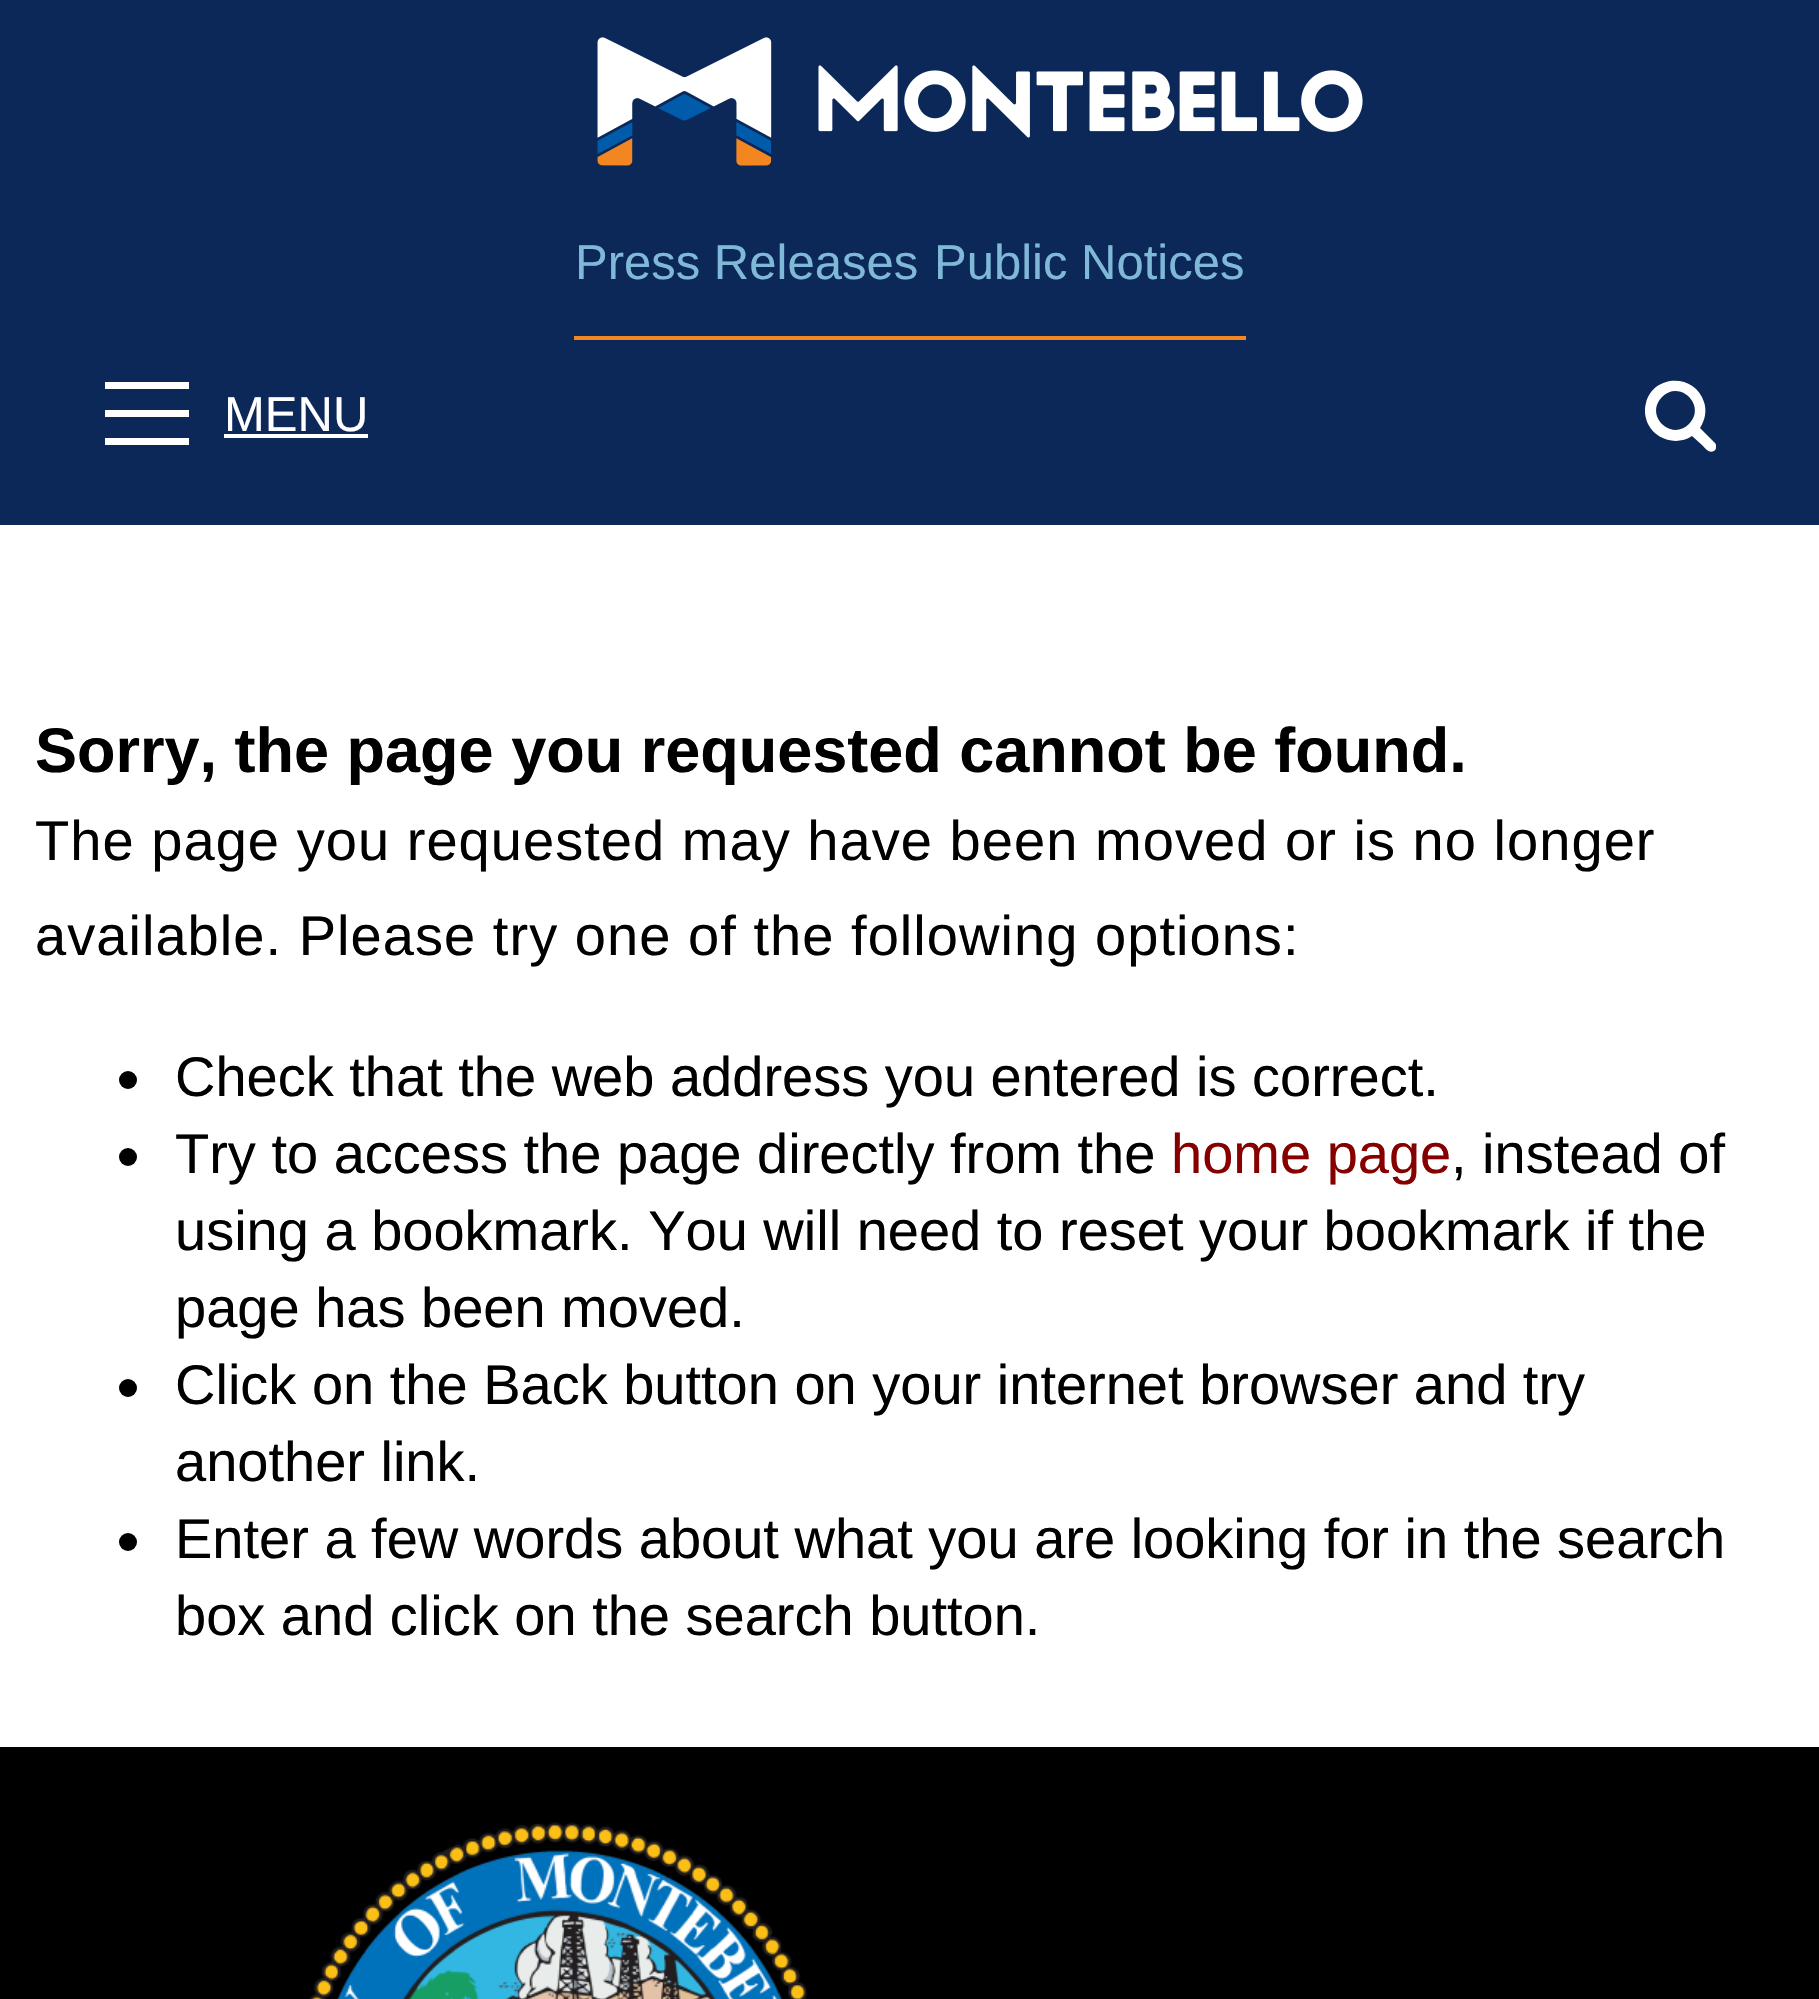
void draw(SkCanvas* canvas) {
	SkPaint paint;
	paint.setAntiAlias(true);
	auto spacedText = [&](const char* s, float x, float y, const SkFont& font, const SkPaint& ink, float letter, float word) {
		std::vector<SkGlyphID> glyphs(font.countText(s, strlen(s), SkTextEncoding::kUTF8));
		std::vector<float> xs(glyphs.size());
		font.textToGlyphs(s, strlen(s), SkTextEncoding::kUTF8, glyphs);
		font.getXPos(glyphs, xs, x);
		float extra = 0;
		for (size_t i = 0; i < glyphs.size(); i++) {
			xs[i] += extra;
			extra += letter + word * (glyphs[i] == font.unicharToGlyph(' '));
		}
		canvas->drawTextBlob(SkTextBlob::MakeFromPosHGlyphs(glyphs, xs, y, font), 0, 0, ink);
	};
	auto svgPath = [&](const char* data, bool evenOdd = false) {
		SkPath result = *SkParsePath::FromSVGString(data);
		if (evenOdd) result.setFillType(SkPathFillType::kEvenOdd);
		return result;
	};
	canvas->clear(0xffffffff);
	paint.setColor(0xff0c2859);
	canvas->drawRect(SkRect::MakeXYWH(0, 0, 1819, 525), paint);
	canvas->drawImageRect(SkImages::DeferredFromEncodedData(SkData::MakeFromFileName("img1.png")), SkRect::MakeXYWH(597, 37, 766, 129), SkSamplingOptions());
	paint.setColor(0xfff38720);
	canvas->drawRect(SkRect::MakeXYWH(574, 336, 672, 4), paint);
	SkFont f1(fontMgr->matchFamilyStyle("Liberation Sans", SkFontStyle::Normal()), 49);
	f1.setSubpixel(true);
	paint.setColor(0xff80b8d8);
	canvas->drawString("Press Releases", 575, 279, f1, paint);
	canvas->drawString("Public Notices", 934, 279, f1, paint);
	paint.setColor(0xffffffff);
	canvas->drawRect(SkRect::MakeXYWH(105, 410, 84, 7), paint);
	canvas->drawRect(SkRect::MakeXYWH(105, 382, 84, 7), paint);
	canvas->drawRect(SkRect::MakeXYWH(105, 438, 84, 7), paint);
	canvas->drawString("MENU", 224, 431, f1, paint);
	canvas->drawRect(SkRect::MakeXYWH(224, 434, 144, 4), paint);
	canvas->drawPath(svgPath("M1689 424C1707 406 1680 379 1662 397C1644 415 1671 442 1689 424ZM1716 446C1716 448 1716 450 1714 451C1709 454 1705 448 1702 445L1692 436C1677 446 1656 440 1648 424C1645 417 1644 410 1646 403C1653 374 1695 373 1704 402C1707 411 1705 420 1700 428L1715 443C1716 444 1716 445 1716 446Z"), paint);
	SkFont f2(fontMgr->matchFamilyStyle("Liberation Sans", SkFontStyle::Bold()), 63);
	f2.setSubpixel(true);
	paint.setColor(0xff000000);
	canvas->drawString("Sorry, the page you requested cannot be found.", 35, 772, f2, paint);
	SkFont f3(fontMgr->matchFamilyStyle("Liberation Sans", SkFontStyle::Normal()), 56);
	f3.setSubpixel(true);
	spacedText("The page you requested may have been moved or is no longer", 35, 860, f3, paint, 1.05, 0);
	spacedText("available. Please try one of the following options:", 35, 955, f3, paint, 1.05, 0);
	canvas->drawCircle(128, 1080, 9, paint);
	canvas->drawString("Check that the web address you entered is correct.", 175, 1096, f3, paint);
	canvas->drawCircle(128, 1157, 9, paint);
	canvas->drawString("Try to access the page directly from the", 175, 1173, f3, paint);
	paint.setColor(0xff860000);
	canvas->drawString("home page", 1171, 1173, f3, paint);
	paint.setColor(0xff000000);
	canvas->drawString(", instead of", 1451, 1173, f3, paint);
	canvas->drawString("using a bookmark. You will need to reset your bookmark if the", 175, 1250, f3, paint);
	canvas->drawString("page has been moved.", 175, 1327, f3, paint);
	canvas->drawCircle(128, 1388, 9, paint);
	canvas->drawString("Click on the Back button on your internet browser and try", 175, 1404, f3, paint);
	canvas->drawString("another link.", 175, 1481, f3, paint);
	canvas->drawCircle(128, 1542, 9, paint);
	canvas->drawString("Enter a few words about what you are looking for in the search", 175, 1558, f3, paint);
	canvas->drawString("box and click on the search button.", 175, 1635, f3, paint);
	canvas->drawRect(SkRect::MakeXYWH(0, 1747, 1819, 252), paint);
	canvas->drawImageRect(SkImages::DeferredFromEncodedData(SkData::MakeFromFileName("img2.png")), SkRect::MakeXYWH(309, 1822, 499, 177), SkSamplingOptions());
}
